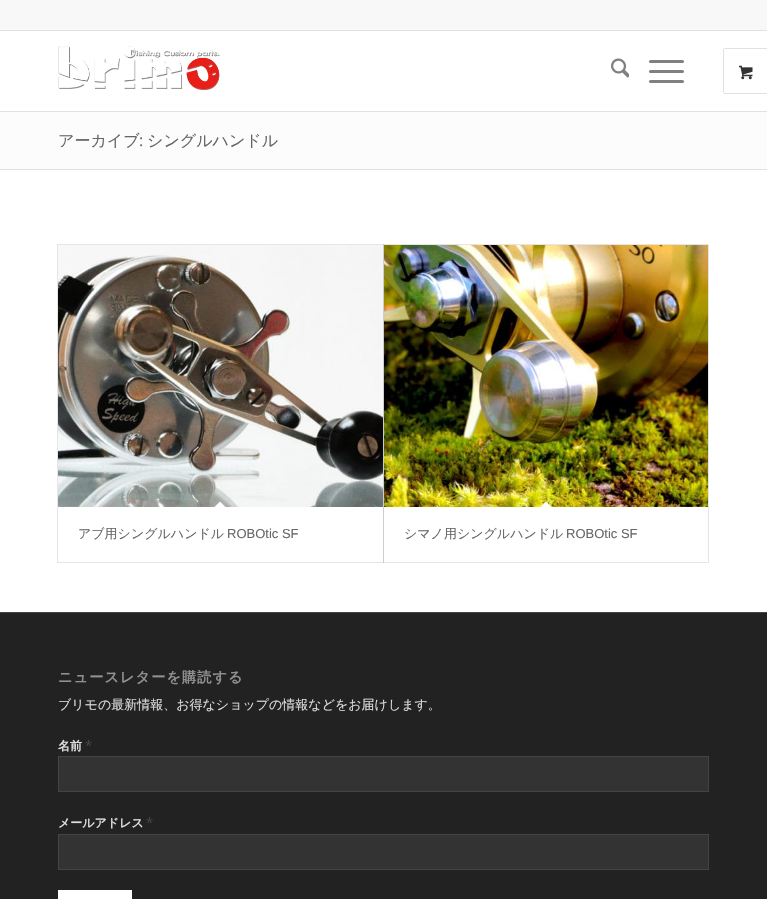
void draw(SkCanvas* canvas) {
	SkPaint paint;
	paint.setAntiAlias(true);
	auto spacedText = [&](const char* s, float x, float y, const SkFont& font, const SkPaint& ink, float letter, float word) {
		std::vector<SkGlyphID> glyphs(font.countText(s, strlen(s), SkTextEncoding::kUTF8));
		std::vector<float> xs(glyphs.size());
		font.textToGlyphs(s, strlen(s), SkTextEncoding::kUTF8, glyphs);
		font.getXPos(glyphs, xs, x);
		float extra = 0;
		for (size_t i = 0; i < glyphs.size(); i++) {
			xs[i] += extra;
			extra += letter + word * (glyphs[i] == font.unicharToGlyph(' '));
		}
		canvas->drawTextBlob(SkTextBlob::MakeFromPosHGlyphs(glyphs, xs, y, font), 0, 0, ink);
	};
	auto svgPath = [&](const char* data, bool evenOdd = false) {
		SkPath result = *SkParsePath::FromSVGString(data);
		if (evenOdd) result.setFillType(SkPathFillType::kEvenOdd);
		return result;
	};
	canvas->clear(0xffffffff);
	paint.setColor(0xfff8f8f8);
	canvas->drawRect(SkRect::MakeXYWH(0, 0, 767, 30), paint);
	paint.setColor(0xffe1e1e1);
	canvas->drawRect(SkRect::MakeXYWH(0, 30, 767, 1), paint);
	canvas->drawRect(SkRect::MakeXYWH(0, 111, 767, 1), paint);
	canvas->drawImageRect(SkImages::DeferredFromEncodedData(SkData::MakeFromFileName("img1.png")), SkRect::MakeXYWH(58, 46, 162, 44), SkSamplingOptions());
	canvas->drawImageRect(SkImages::DeferredFromEncodedData(SkData::MakeFromFileName("img2.png")), SkRect::MakeXYWH(611, 58, 18, 20), SkSamplingOptions());
	paint.setColor(0xff808080);
	canvas->drawRoundRect(SkRect::MakeXYWH(649, 70, 35, 3), 1.5, 1.5, paint);
	canvas->drawRoundRect(SkRect::MakeXYWH(649, 60, 35, 3), 1.5, 1.5, paint);
	canvas->drawRoundRect(SkRect::MakeXYWH(649, 80, 35, 3), 1.5, 1.5, paint);
	paint.setStroke(true);
	paint.setStrokeWidth(1);
	paint.setColor(0xffe1e1e1);
	canvas->drawRoundRect(SkRect::MakeXYWH(723.5, 48.5, 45, 45), 1.5, 1.5, paint);
	paint.setStroke(false);
	paint.setColor(0xffffffff);
	canvas->drawRect(SkRect::MakeXYWH(724, 49, 1, 44), paint);
	canvas->drawImageRect(SkImages::DeferredFromEncodedData(SkData::MakeFromFileName("img3.png")), SkRect::MakeXYWH(739, 65, 14, 15), SkSamplingOptions());
	paint.setColor(0xfffcfcfc);
	canvas->drawRect(SkRect::MakeXYWH(0, 112, 767, 57), paint);
	SkFont f1(fontMgr->matchFamilyStyle("WenQuanYi Zen Hei", SkFontStyle(500, SkFontStyle::kNormal_Width, SkFontStyle::kUpright_Slant)), 16);
	f1.setSubpixel(true);
	paint.setColor(0xff666666);
	canvas->drawString("アーカイブ", 58, 146, f1, paint);
	SkFont f2(fontMgr->matchFamilyStyle("Open Sans", SkFontStyle::Normal()), 16);
	f2.setSubpixel(true);
	canvas->drawString(":", 139, 146, f2, paint);
	canvas->drawString("シングルハンドル", 147, 146, f1, paint);
	paint.setColor(0xffe1e1e1);
	canvas->drawRect(SkRect::MakeXYWH(0, 169, 767, 1), paint);
	paint.setStroke(true);
	paint.setColor(0xffe6e6e6);
	canvas->drawRect(SkRect::MakeXYWH(57.5, 244.5, 326, 318), paint);
	canvas->drawImageRect(SkImages::DeferredFromEncodedData(SkData::MakeFromFileName("img4.png")), SkRect::MakeXYWH(58, 245, 325, 262), SkSamplingOptions());
	paint.setStroke(false);
	paint.setColor(0xffffffff);
	canvas->drawPath(svgPath("M220 501.5L227 508.5L220 515.5L213 508.5Z"), paint);
	SkFont f3(fontMgr->matchFamilyStyle("WenQuanYi Zen Hei", SkFontStyle(500, SkFontStyle::kNormal_Width, SkFontStyle::kUpright_Slant)), 13);
	f3.setSubpixel(true);
	paint.setColor(0xff666666);
	canvas->drawString("アブ用シングルハンドル", 78, 538, f3, paint);
	SkFont f4(fontMgr->matchFamilyStyle("Liberation Sans", SkFontStyle::Normal()), 13);
	f4.setSubpixel(true);
	canvas->drawString("ROBOtic SF", 227, 538, f4, paint);
	paint.setStroke(true);
	paint.setColor(0x1a000000);
	canvas->drawRect(SkRect::MakeXYWH(383.5, 244.5, 325, 318), paint);
	canvas->drawImageRect(SkImages::DeferredFromEncodedData(SkData::MakeFromFileName("img5.png")), SkRect::MakeXYWH(384, 245, 324, 262), SkSamplingOptions());
	paint.setStroke(false);
	paint.setColor(0xffffffff);
	canvas->drawPath(svgPath("M546 501.5L553 508.5L546 515.5L539 508.5Z"), paint);
	paint.setColor(0xff666666);
	canvas->drawString("シマノ用シングルハンドル", 404, 538, f3, paint);
	canvas->drawString("ROBOtic SF", 566, 538, f4, paint);
	paint.setColor(0xff222222);
	canvas->drawRect(SkRect::MakeXYWH(0, 613, 767, 286), paint);
	paint.setColor(0xff444444);
	canvas->drawRect(SkRect::MakeXYWH(0, 612, 767, 1), paint);
	SkFont f5(fontMgr->matchFamilyStyle("WenQuanYi Zen Hei", SkFontStyle::Bold()), 14.25);
	f5.setSubpixel(true);
	paint.setColor(0xff919191);
	spacedText("ニュースレターを購読する", 58, 682, f5, paint, 1, 0);
	paint.setColor(0xffdddddd);
	canvas->drawString("ブリモの最新情報、お得なショップの情報などをお届けします。", 58, 709, f3, paint);
	SkFont f6(fontMgr->matchFamilyStyle("WenQuanYi Zen Hei", SkFontStyle::Bold()), 12);
	f6.setSubpixel(true);
	canvas->drawString("名前", 58, 750, f6, paint);
	SkFont f7(fontMgr->matchFamilyStyle("Open Sans", SkFontStyle::Normal()), 13);
	f7.setSubpixel(true);
	paint.setColor(0xff444444);
	canvas->drawString("*", 85, 750, f7, paint);
	paint.setColor(0xff333333);
	canvas->drawRect(SkRect::MakeXYWH(58.5, 756.5, 650, 35), paint);
	paint.setStroke(true);
	paint.setColor(0xff444444);
	canvas->drawRect(SkRect::MakeXYWH(58.5, 756.5, 650, 35), paint);
	paint.setStroke(false);
	paint.setColor(0xffdddddd);
	canvas->drawString("メールアドレス", 58, 827, f6, paint);
	paint.setColor(0xff444444);
	canvas->drawString("*", 146, 827, f7, paint);
	paint.setColor(0xff333333);
	canvas->drawRect(SkRect::MakeXYWH(58.5, 834.5, 650, 35), paint);
	paint.setStroke(true);
	paint.setColor(0xff444444);
	canvas->drawRect(SkRect::MakeXYWH(58.5, 834.5, 650, 35), paint);
	paint.setStroke(false);
	paint.setColor(0xffffffff);
	canvas->drawRect(SkRect::MakeXYWH(58, 890, 74, 9), paint);
}
